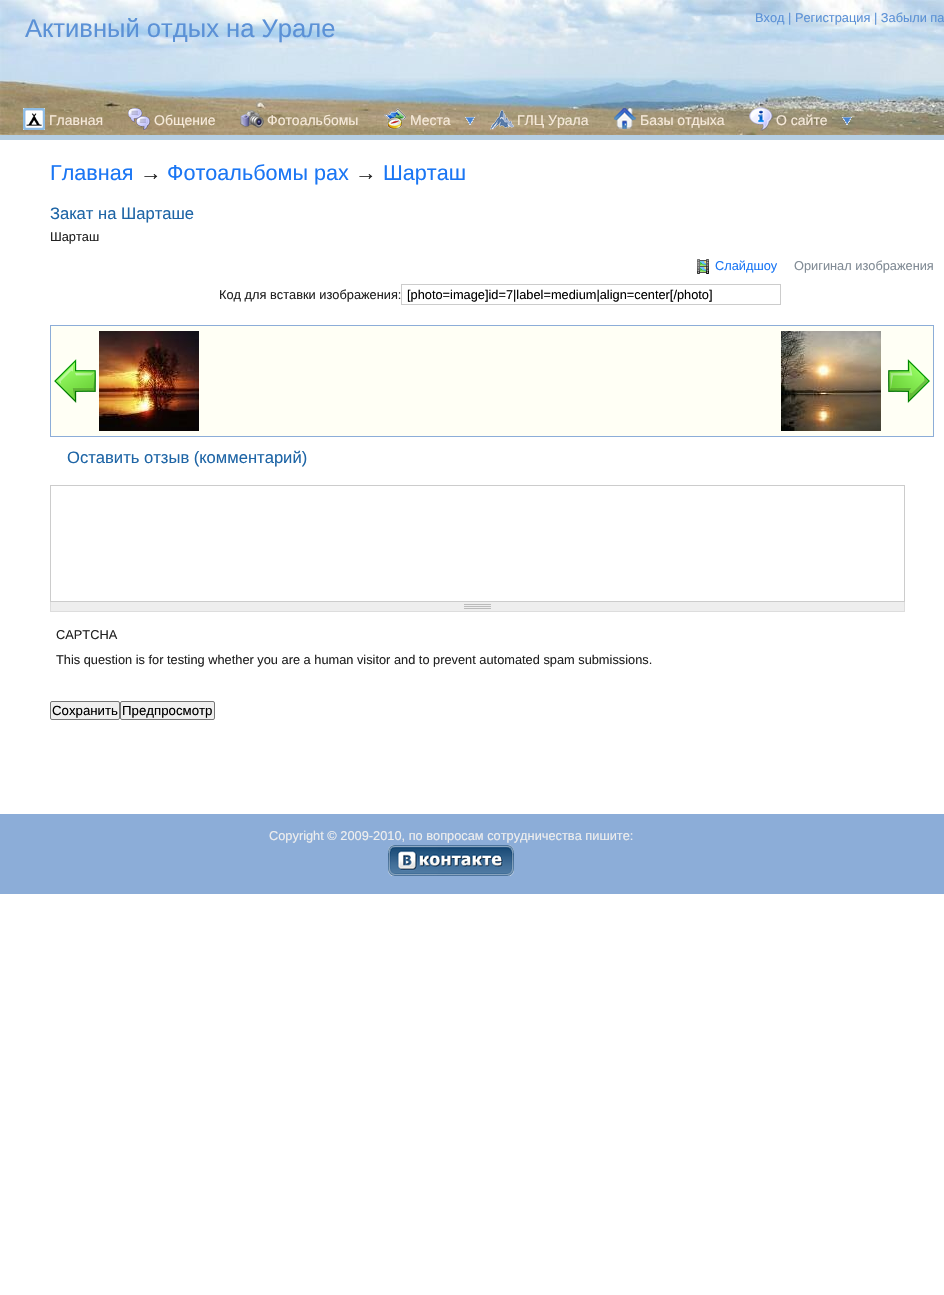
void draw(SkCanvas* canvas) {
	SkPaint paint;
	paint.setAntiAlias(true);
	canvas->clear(0xffffffff);
	canvas->drawImageRect(SkImages::DeferredFromEncodedData(SkData::MakeFromFileName("img1.png")), SkRect::MakeXYWH(0, 0, 944, 135), SkSamplingOptions());
	paint.setColor(0xffb5cee3);
	canvas->drawRect(SkRect::MakeXYWH(0, 135, 944, 5), paint);
	SkFont f1(fontMgr->matchFamilyStyle("Liberation Sans", SkFontStyle::Normal()), 25.6);
	f1.setSubpixel(true);
	paint.setColor(0xff5b91d6);
	canvas->drawString("Активный отдых на Урале", 25, 37, f1, paint);
	SkFont f2(fontMgr->matchFamilyStyle("Liberation Sans", SkFontStyle::Normal()), 12.8);
	f2.setSubpixel(true);
	canvas->drawString("Вход | Регистрация | Забыли па", 755, 22, f2, paint);
	canvas->drawImageRect(SkImages::DeferredFromEncodedData(SkData::MakeFromFileName("img2.png")), SkRect::MakeXYWH(23, 108, 22, 22), SkSamplingOptions());
	SkFont f3(fontMgr->matchFamilyStyle("Liberation Sans", SkFontStyle::Normal()), 14);
	f3.setSubpixel(true);
	paint.setColor(0xfff7eada);
	canvas->drawString("Главная", 49, 125, f3, paint);
	canvas->drawImageRect(SkImages::DeferredFromEncodedData(SkData::MakeFromFileName("img3.png")), SkRect::MakeXYWH(127, 107, 24, 24), SkSamplingOptions());
	canvas->drawString("Общение", 154, 125, f3, paint);
	canvas->drawImageRect(SkImages::DeferredFromEncodedData(SkData::MakeFromFileName("img4.png")), SkRect::MakeXYWH(240, 110, 24, 18), SkSamplingOptions());
	canvas->drawString("Фотоальбомы", 267, 125, f3, paint);
	canvas->drawImageRect(SkImages::DeferredFromEncodedData(SkData::MakeFromFileName("img5.png")), SkRect::MakeXYWH(465, 117, 10, 8), SkSamplingOptions());
	canvas->drawImageRect(SkImages::DeferredFromEncodedData(SkData::MakeFromFileName("img6.png")), SkRect::MakeXYWH(383, 108, 24, 22), SkSamplingOptions());
	canvas->drawString("Места", 410, 125, f3, paint);
	canvas->drawImageRect(SkImages::DeferredFromEncodedData(SkData::MakeFromFileName("img7.png")), SkRect::MakeXYWH(490, 109, 24, 21), SkSamplingOptions());
	canvas->drawString("ГЛЦ Урала", 517, 125, f3, paint);
	canvas->drawImageRect(SkImages::DeferredFromEncodedData(SkData::MakeFromFileName("img8.png")), SkRect::MakeXYWH(614, 108, 22, 21), SkSamplingOptions());
	canvas->drawString("Базы отдыха", 640, 125, f3, paint);
	canvas->drawImageRect(SkImages::DeferredFromEncodedData(SkData::MakeFromFileName("img9.png")), SkRect::MakeXYWH(842, 117, 10, 8), SkSamplingOptions());
	canvas->drawImageRect(SkImages::DeferredFromEncodedData(SkData::MakeFromFileName("img10.png")), SkRect::MakeXYWH(749, 107, 24, 24), SkSamplingOptions());
	canvas->drawString("О сайте", 776, 125, f3, paint);
	SkFont f4(fontMgr->matchFamilyStyle("Liberation Sans", SkFontStyle::Normal()), 21.6);
	f4.setSubpixel(true);
	paint.setColor(0xff1a76f4);
	canvas->drawString("Главная", 50, 180, f4, paint);
	paint.setColor(0xff222222);
	canvas->drawString("→", 140, 180, f4, paint);
	paint.setColor(0xff1a76f4);
	canvas->drawString("Фотоальбомы pax", 167, 180, f4, paint);
	paint.setColor(0xff222222);
	canvas->drawString("→", 355, 180, f4, paint);
	paint.setColor(0xff1a76f4);
	canvas->drawString("Шарташ", 383, 180, f4, paint);
	SkFont f5(fontMgr->matchFamilyStyle("Liberation Sans", SkFontStyle::Normal()), 16.6);
	f5.setSubpixel(true);
	paint.setColor(0xff1e65a6);
	canvas->drawString("Закат на Шарташе", 50, 219, f5, paint);
	paint.setColor(0xff222222);
	canvas->drawString("Шарташ", 50, 241, f2, paint);
	canvas->drawImageRect(SkImages::DeferredFromEncodedData(SkData::MakeFromFileName("img11.png")), SkRect::MakeXYWH(697, 259, 12, 15), SkSamplingOptions());
	paint.setColor(0xff1a76f4);
	canvas->drawString("Слайдшоу", 715, 270, f2, paint);
	paint.setColor(0xff818b95);
	canvas->drawString("Оригинал изображения", 794, 270, f2, paint);
	paint.setColor(0xff222222);
	canvas->drawString("Код для вставки изображения:", 219, 299, f2, paint);
	paint.setStroke(true);
	paint.setStrokeWidth(1);
	paint.setColor(0xffcccccc);
	canvas->drawRect(SkRect::MakeXYWH(401.5, 284.5, 379, 20), paint);
	paint.setStroke(false);
	paint.setColor(0xff000000);
	canvas->drawString("[photo=image]id=7|label=medium|align=center[/photo]", 407, 299, f2, paint);
	paint.setColor(0xfffffff5);
	canvas->drawRect(SkRect::MakeXYWH(50.5, 325.5, 883, 111), paint);
	paint.setStroke(true);
	paint.setColor(0xff8cadd8);
	canvas->drawRect(SkRect::MakeXYWH(50.5, 325.5, 883, 111), paint);
	canvas->drawImageRect(SkImages::DeferredFromEncodedData(SkData::MakeFromFileName("img12.png")), SkRect::MakeXYWH(54, 359, 42, 44), SkSamplingOptions());
	canvas->drawImageRect(SkImages::DeferredFromEncodedData(SkData::MakeFromFileName("img13.png")), SkRect::MakeXYWH(99, 331, 100, 100), SkSamplingOptions());
	canvas->drawImageRect(SkImages::DeferredFromEncodedData(SkData::MakeFromFileName("img14.png")), SkRect::MakeXYWH(781, 331, 100, 100), SkSamplingOptions());
	canvas->drawImageRect(SkImages::DeferredFromEncodedData(SkData::MakeFromFileName("img15.png")), SkRect::MakeXYWH(888, 359, 42, 44), SkSamplingOptions());
	paint.setStroke(false);
	paint.setColor(0xff1e65a6);
	canvas->drawString("Оставить отзыв (комментарий)", 67, 463, f5, paint);
	paint.setStroke(true);
	paint.setColor(0xffcccccc);
	canvas->drawRect(SkRect::MakeXYWH(50.5, 485.5, 854, 116), paint);
	paint.setStroke(false);
	paint.setColor(0xffeeeeee);
	canvas->drawRect(SkRect::MakeXYWH(51, 602, 853, 9), paint);
	canvas->drawImageRect(SkImages::DeferredFromEncodedData(SkData::MakeFromFileName("img16.png")), SkRect::MakeXYWH(464, 604, 27, 5), SkSamplingOptions());
	paint.setColor(0xffdddddd);
	canvas->drawRect(SkRect::MakeXYWH(904, 602, 1, 10), paint);
	canvas->drawRect(SkRect::MakeXYWH(50, 611, 855, 1), paint);
	canvas->drawRect(SkRect::MakeXYWH(50, 602, 1, 10), paint);
	paint.setColor(0xff222222);
	canvas->drawString("CAPTCHA", 56, 639, f2, paint);
	canvas->drawString("This question is for testing whether you are a human visitor and to prevent automated spam submissions.", 56, 664, f2, paint);
	paint.setColor(0xffefefef);
	canvas->drawRoundRect(SkRect::MakeXYWH(50.5, 701.5, 69, 18), 1.5, 1.5, paint);
	paint.setStroke(true);
	paint.setColor(0xff767676);
	canvas->drawRoundRect(SkRect::MakeXYWH(50.5, 701.5, 69, 18), 1.5, 1.5, paint);
	SkFont f6(fontMgr->matchFamilyStyle("Liberation Sans", SkFontStyle::Normal()), 13.25);
	f6.setSubpixel(true);
	paint.setStroke(false);
	paint.setColor(0xff000000);
	canvas->drawString("Сохранить", 52, 715, f6, paint);
	paint.setColor(0xffefefef);
	canvas->drawRoundRect(SkRect::MakeXYWH(120.5, 701.5, 94, 18), 1.5, 1.5, paint);
	paint.setStroke(true);
	paint.setColor(0xff767676);
	canvas->drawRoundRect(SkRect::MakeXYWH(120.5, 701.5, 94, 18), 1.5, 1.5, paint);
	paint.setStroke(false);
	paint.setColor(0xff000000);
	canvas->drawString("Предпросмотр", 122, 715, f6, paint);
	paint.setColor(0xff8cadd8);
	canvas->drawRect(SkRect::MakeXYWH(0, 814, 944, 80), paint);
	paint.setColor(0xffeeeeee);
	canvas->drawString("Copyright © 2009-2010, по вопросам сотрудничества пишите:", 269, 840, f2, paint);
	canvas->drawImageRect(SkImages::DeferredFromEncodedData(SkData::MakeFromFileName("img17.png")), SkRect::MakeXYWH(388, 845, 126, 31), SkSamplingOptions());
}
